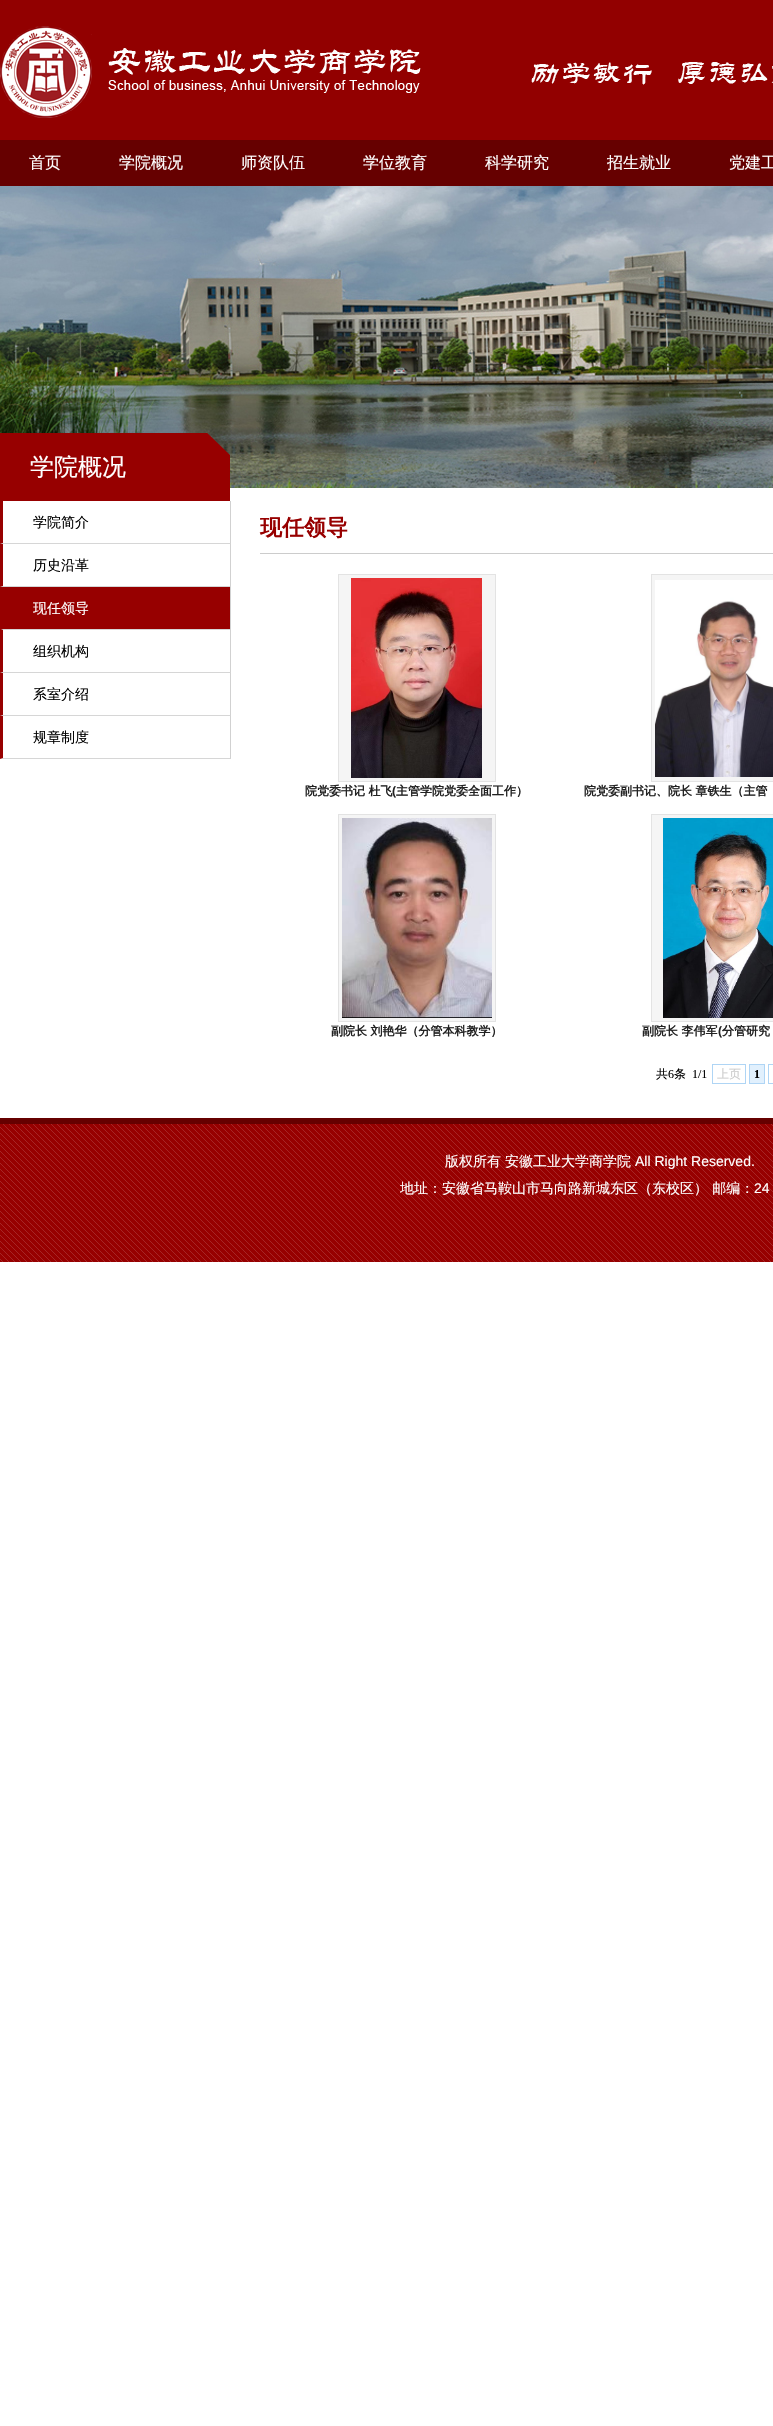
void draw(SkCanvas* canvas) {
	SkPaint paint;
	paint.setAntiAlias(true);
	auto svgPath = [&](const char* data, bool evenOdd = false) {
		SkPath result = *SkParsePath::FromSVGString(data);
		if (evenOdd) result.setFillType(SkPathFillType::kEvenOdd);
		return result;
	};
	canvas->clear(0xffffffff);
	paint.setColor(0xff920000);
	canvas->drawRect(SkRect::MakeXYWH(0, 0, 773, 140), paint);
	canvas->drawImageRect(SkImages::DeferredFromEncodedData(SkData::MakeFromFileName("img1.png")), SkRect::MakeXYWH(0, 26, 773, 92), SkSamplingOptions());
	paint.setColor(0xff660000);
	canvas->drawRect(SkRect::MakeXYWH(0, 140, 773, 46), paint);
	SkFont f1(fontMgr->matchFamilyStyle("WenQuanYi Zen Hei", SkFontStyle(500, SkFontStyle::kNormal_Width, SkFontStyle::kUpright_Slant)), 16);
	f1.setSubpixel(true);
	paint.setColor(0xffffffff);
	canvas->drawString("首页", 29, 168, f1, paint);
	canvas->drawString("学院概况", 119, 168, f1, paint);
	canvas->drawString("师资队伍", 241, 168, f1, paint);
	canvas->drawString("学位教育", 363, 168, f1, paint);
	canvas->drawString("科学研究", 485, 168, f1, paint);
	canvas->drawString("招生就业", 607, 168, f1, paint);
	canvas->drawString("党建工", 729, 168, f1, paint);
	canvas->drawImageRect(SkImages::DeferredFromEncodedData(SkData::MakeFromFileName("img2.png")), SkRect::MakeXYWH(0, 186, 773, 302), SkSamplingOptions());
	canvas->drawImageRect(SkImages::DeferredFromEncodedData(SkData::MakeFromFileName("img3.png")), SkRect::MakeXYWH(0, 433, 230, 68), SkSamplingOptions());
	SkFont f2(fontMgr->matchFamilyStyle("WenQuanYi Zen Hei", SkFontStyle(500, SkFontStyle::kNormal_Width, SkFontStyle::kUpright_Slant)), 24);
	f2.setSubpixel(true);
	canvas->drawString("学院概况", 30, 475, f2, paint);
	paint.setColor(0xffd1d1d1);
	canvas->drawRect(SkRect::MakeXYWH(230, 501, 1, 258), paint);
	paint.setColor(0xffd6d6d6);
	canvas->drawPath(svgPath("M231 544H0L3 543H230Z"), paint);
	paint.setColor(0xff970000);
	canvas->drawPath(svgPath("M0 544V501H3V543Z"), paint);
	SkFont f3(fontMgr->matchFamilyStyle("WenQuanYi Zen Hei", SkFontStyle(500, SkFontStyle::kNormal_Width, SkFontStyle::kUpright_Slant)), 14);
	f3.setSubpixel(true);
	paint.setColor(0xff000000);
	canvas->drawString("学院简介", 33, 527, f3, paint);
	paint.setColor(0xffd6d6d6);
	canvas->drawPath(svgPath("M231 587H0L3 586H230Z"), paint);
	paint.setColor(0xff970000);
	canvas->drawPath(svgPath("M0 587V544H3V586Z"), paint);
	paint.setColor(0xff000000);
	canvas->drawString("历史沿革", 33, 570, f3, paint);
	paint.setColor(0xff970000);
	canvas->drawRect(SkRect::MakeXYWH(0, 587, 230, 43), paint);
	paint.setColor(0xffd6d6d6);
	canvas->drawPath(svgPath("M231 630H0L3 629H230Z"), paint);
	paint.setColor(0xff970000);
	canvas->drawPath(svgPath("M0 630V587H3V629Z"), paint);
	paint.setColor(0xffffffff);
	canvas->drawString("现任领导", 33, 613, f3, paint);
	paint.setColor(0xffd6d6d6);
	canvas->drawPath(svgPath("M231 673H0L3 672H230Z"), paint);
	paint.setColor(0xff970000);
	canvas->drawPath(svgPath("M0 673V630H3V672Z"), paint);
	paint.setColor(0xff000000);
	canvas->drawString("组织机构", 33, 656, f3, paint);
	paint.setColor(0xffd6d6d6);
	canvas->drawPath(svgPath("M231 716H0L3 715H230Z"), paint);
	paint.setColor(0xff970000);
	canvas->drawPath(svgPath("M0 716V673H3V715Z"), paint);
	paint.setColor(0xff000000);
	canvas->drawString("系室介绍", 33, 699, f3, paint);
	paint.setColor(0xffd6d6d6);
	canvas->drawPath(svgPath("M231 759H0L3 758H230Z"), paint);
	paint.setColor(0xff970000);
	canvas->drawPath(svgPath("M0 759V716H3V758Z"), paint);
	paint.setColor(0xff000000);
	canvas->drawString("规章制度", 33, 742, f3, paint);
	paint.setColor(0xffcccccc);
	canvas->drawRect(SkRect::MakeXYWH(260, 553, 513, 1), paint);
	SkFont f4(fontMgr->matchFamilyStyle("WenQuanYi Zen Hei", SkFontStyle::Bold()), 22);
	f4.setSubpixel(true);
	paint.setColor(0xff970000);
	canvas->drawString("现任领导", 260, 535, f4, paint);
	paint.setColor(0xfff5f5f5);
	canvas->drawRect(SkRect::MakeXYWH(338.5, 574.5, 157, 207), paint);
	paint.setStroke(true);
	paint.setStrokeWidth(1);
	paint.setColor(0xffe3e3e3);
	canvas->drawRect(SkRect::MakeXYWH(338.5, 574.5, 157, 207), paint);
	canvas->drawImageRect(SkImages::DeferredFromEncodedData(SkData::MakeFromFileName("img4.png")), SkRect::MakeXYWH(351, 578, 131, 200), SkSamplingOptions());
	SkFont f5(fontMgr->matchFamilyStyle("WenQuanYi Zen Hei", SkFontStyle::Bold()), 12);
	f5.setSubpixel(true);
	paint.setStroke(false);
	paint.setColor(0xff222222);
	canvas->drawString("院党委书记 杜飞", 305, 795, f5, paint);
	SkFont f6(fontMgr->matchFamilyStyle("Liberation Sans", SkFontStyle::Bold()), 12);
	f6.setSubpixel(true);
	canvas->drawString("(", 392, 795, f6, paint);
	canvas->drawString("主管学院党委全面工作）", 396, 795, f5, paint);
	paint.setColor(0xfff5f5f5);
	canvas->drawRect(SkRect::MakeXYWH(651.5, 574.5, 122, 207), paint);
	paint.setStroke(true);
	paint.setColor(0xffe3e3e3);
	canvas->drawRect(SkRect::MakeXYWH(651.5, 574.5, 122, 207), paint);
	canvas->drawImageRect(SkImages::DeferredFromEncodedData(SkData::MakeFromFileName("img5.png")), SkRect::MakeXYWH(655, 580, 118, 197), SkSamplingOptions());
	paint.setStroke(false);
	paint.setColor(0xff222222);
	canvas->drawString("院党委副书记、院长 章铁生（主管", 584, 795, f5, paint);
	paint.setColor(0xfff5f5f5);
	canvas->drawRect(SkRect::MakeXYWH(338.5, 814.5, 157, 207), paint);
	paint.setStroke(true);
	paint.setColor(0xffe3e3e3);
	canvas->drawRect(SkRect::MakeXYWH(338.5, 814.5, 157, 207), paint);
	canvas->drawImageRect(SkImages::DeferredFromEncodedData(SkData::MakeFromFileName("img6.png")), SkRect::MakeXYWH(342, 818, 150, 200), SkSamplingOptions());
	paint.setStroke(false);
	paint.setColor(0xff222222);
	canvas->drawString("副院长 刘艳华（分管本科教学）", 331, 1035, f5, paint);
	paint.setColor(0xfff5f5f5);
	canvas->drawRect(SkRect::MakeXYWH(651.5, 814.5, 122, 207), paint);
	paint.setStroke(true);
	paint.setColor(0xffe3e3e3);
	canvas->drawRect(SkRect::MakeXYWH(651.5, 814.5, 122, 207), paint);
	canvas->drawImageRect(SkImages::DeferredFromEncodedData(SkData::MakeFromFileName("img7.png")), SkRect::MakeXYWH(663, 818, 110, 200), SkSamplingOptions());
	paint.setStroke(false);
	paint.setColor(0xff222222);
	canvas->drawString("副院长 李伟军", 642, 1035, f5, paint);
	canvas->drawString("(", 718, 1035, f6, paint);
	canvas->drawString("分管研究", 722, 1035, f5, paint);
	SkFont f7(fontMgr->matchFamilyStyle("WenQuanYi Zen Hei", SkFontStyle(500, SkFontStyle::kNormal_Width, SkFontStyle::kUpright_Slant)), 12);
	f7.setSubpixel(true);
	paint.setColor(0xff000000);
	canvas->drawString("共", 656, 1078, f7, paint);
	SkFont f8(fontMgr->matchFamilyStyle("Liberation Serif", SkFontStyle::Normal()), 12);
	f8.setSubpixel(true);
	canvas->drawString("6", 668, 1078, f8, paint);
	canvas->drawString("条", 674, 1078, f7, paint);
	canvas->drawString("1/1", 692, 1078, f8, paint);
	paint.setStroke(true);
	paint.setColor(0xffafd5f5);
	canvas->drawRect(SkRect::MakeXYWH(712.5, 1064.5, 33, 19), paint);
	paint.setStroke(false);
	paint.setColor(0xffcccccc);
	canvas->drawString("上页", 717, 1078, f7, paint);
	paint.setColor(0xffe1f0fd);
	canvas->drawRect(SkRect::MakeXYWH(749.5, 1064.5, 15, 19), paint);
	paint.setStroke(true);
	paint.setColor(0xffafd5f5);
	canvas->drawRect(SkRect::MakeXYWH(749.5, 1064.5, 15, 19), paint);
	SkFont f9(fontMgr->matchFamilyStyle("Liberation Serif", SkFontStyle::Bold()), 12);
	f9.setSubpixel(true);
	paint.setStroke(false);
	paint.setColor(0xff000000);
	canvas->drawString("1", 754, 1078, f9, paint);
	paint.setStroke(true);
	paint.setColor(0xffafd5f5);
	canvas->drawRect(SkRect::MakeXYWH(768.5, 1064.5, 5, 19), paint);
	canvas->drawImageRect(SkImages::DeferredFromEncodedData(SkData::MakeFromFileName("img8.png")), SkRect::MakeXYWH(0, 1118, 773, 144), SkSamplingOptions());
	paint.setStroke(false);
	paint.setColor(0xffffffff);
	canvas->drawString("版权所有", 445, 1166, f3, paint);
	canvas->drawString("安徽工业大学商学院", 505, 1166, f3, paint);
	SkFont f10(fontMgr->matchFamilyStyle("Liberation Sans", SkFontStyle::Normal()), 14);
	f10.setSubpixel(true);
	canvas->drawString("All Right Reserved.", 635, 1166, f10, paint);
	canvas->drawString("地址：安徽省马鞍山市马向路新城东区（东校区） 邮编：", 400, 1193, f3, paint);
	canvas->drawString("24", 754, 1193, f10, paint);
}
